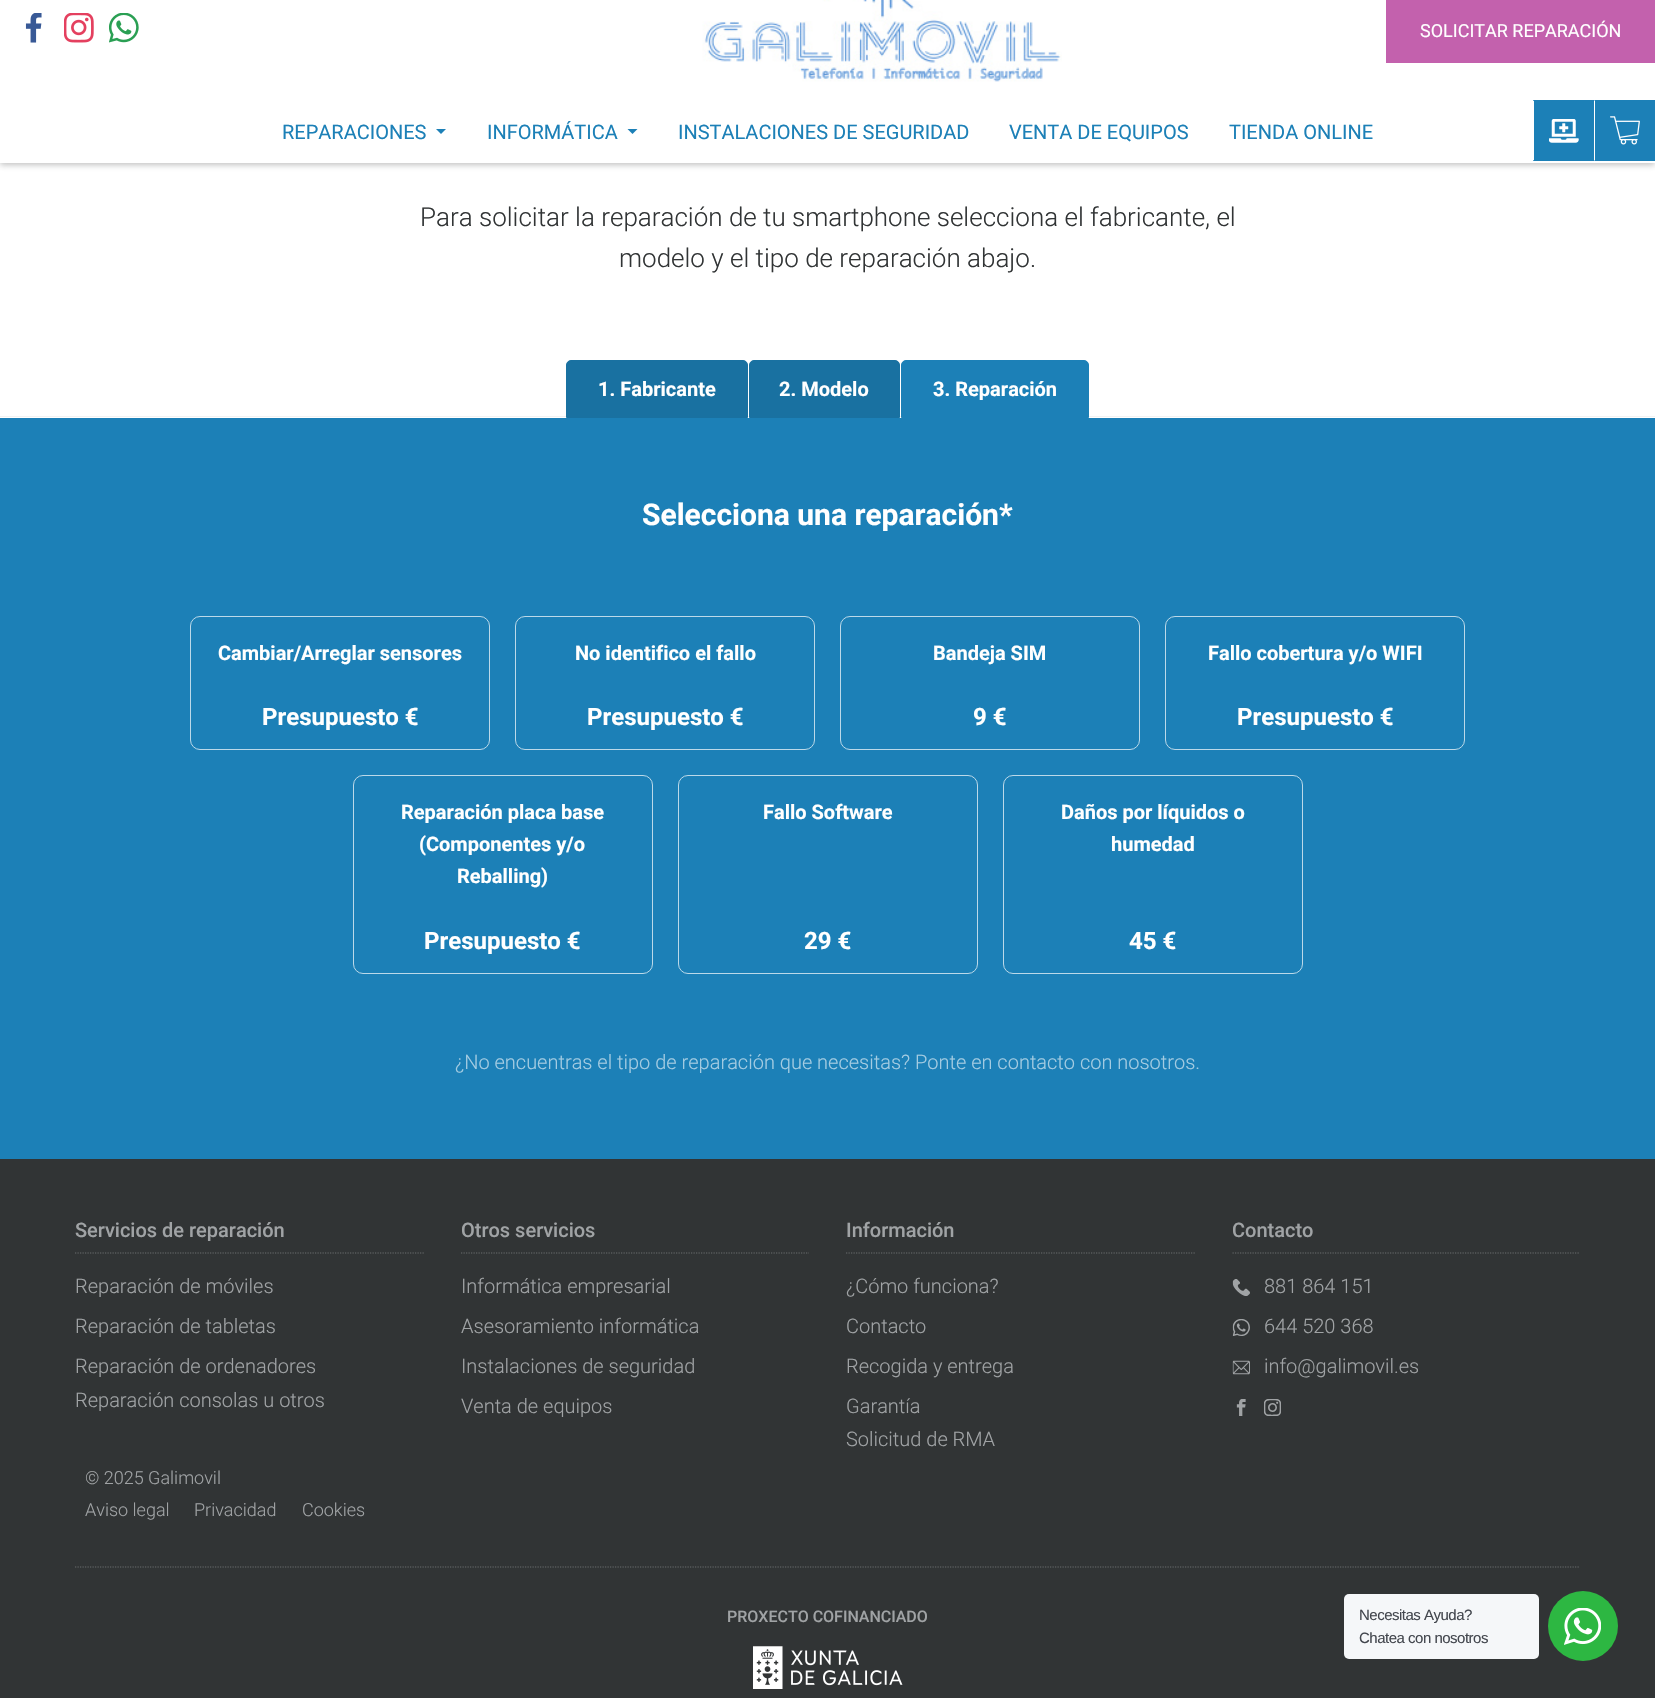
void draw(SkCanvas* canvas) {
	SkPaint paint;
	paint.setAntiAlias(true);
	auto spacedText = [&](const char* s, float x, float y, const SkFont& font, const SkPaint& ink, float letter, float word) {
		std::vector<SkGlyphID> glyphs(font.countText(s, strlen(s), SkTextEncoding::kUTF8));
		std::vector<float> xs(glyphs.size());
		font.textToGlyphs(s, strlen(s), SkTextEncoding::kUTF8, glyphs);
		font.getXPos(glyphs, xs, x);
		float extra = 0;
		for (size_t i = 0; i < glyphs.size(); i++) {
			xs[i] += extra;
			extra += letter + word * (glyphs[i] == font.unicharToGlyph(' '));
		}
		canvas->drawTextBlob(SkTextBlob::MakeFromPosHGlyphs(glyphs, xs, y, font), 0, 0, ink);
	};
	auto svgPath = [&](const char* data, bool evenOdd = false) {
		SkPath result = *SkParsePath::FromSVGString(data);
		if (evenOdd) result.setFillType(SkPathFillType::kEvenOdd);
		return result;
	};
	canvas->clear(0xffffffff);
	paint.setColor(0x4d313435);
	paint.setMaskFilter(SkMaskFilter::MakeBlur(kNormal_SkBlurStyle, 3));
	canvas->drawRect(SkRect::MakeXYWH(0, -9, 1655, 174), paint);
	paint.setMaskFilter(nullptr);
	paint.setColor(0xffffffff);
	canvas->drawRect(SkRect::MakeXYWH(0, 0, 1655, 163), paint);
	canvas->drawImageRect(SkImages::DeferredFromEncodedData(SkData::MakeFromFileName("img1.png")), SkRect::MakeXYWH(25, 13, 17, 30), SkSamplingOptions());
	canvas->drawImageRect(SkImages::DeferredFromEncodedData(SkData::MakeFromFileName("img2.png")), SkRect::MakeXYWH(64, 13, 30, 30), SkSamplingOptions());
	canvas->drawImageRect(SkImages::DeferredFromEncodedData(SkData::MakeFromFileName("img3.png")), SkRect::MakeXYWH(109, 13, 30, 30), SkSamplingOptions());
	canvas->drawImageRect(SkImages::DeferredFromEncodedData(SkData::MakeFromFileName("img4.png")), SkRect::MakeXYWH(693, 0, 369, 89), SkSamplingOptions());
	paint.setColor(0xffc361ad);
	canvas->drawRect(SkRect::MakeXYWH(1386, 0, 269, 63), paint);
	SkFont f1(fontMgr->matchFamilyStyle("Roboto", SkFontStyle::Normal()), 18);
	f1.setSubpixel(true);
	paint.setColor(0xffffffff);
	canvas->drawString("SOLICITAR REPARACIÓN", 1420, 37, f1, paint);
	SkFont f2(fontMgr->matchFamilyStyle("Roboto", SkFontStyle::Normal()), 20);
	f2.setSubpixel(true);
	paint.setColor(0xff1c80b7);
	canvas->drawString("REPARACIONES", 282, 139, f2, paint);
	canvas->drawPath(svgPath("M436 129H446L441 134Z"), paint);
	canvas->drawString("INFORMÁTICA", 487, 139, f2, paint);
	canvas->drawPath(svgPath("M627.5 129H637.5L632.5 134Z"), paint);
	canvas->drawString("INSTALACIONES DE SEGURIDAD", 678, 139, f2, paint);
	canvas->drawString("VENTA DE EQUIPOS", 1009, 139, f2, paint);
	canvas->drawString("TIENDA ONLINE", 1229, 139, f2, paint);
	canvas->drawRect(SkRect::MakeXYWH(1533, 100, 122, 61), paint);
	paint.setColor(0xffffffff);
	canvas->drawPath(svgPath("M1532 161V100L1534 101V160Z"), paint);
	canvas->drawImageRect(SkImages::DeferredFromEncodedData(SkData::MakeFromFileName("img5.png")), SkRect::MakeXYWH(1549, 119, 30, 24), SkSamplingOptions());
	canvas->drawPath(svgPath("M1594 161V100L1595 101V160Z"), paint);
	canvas->drawImageRect(SkImages::DeferredFromEncodedData(SkData::MakeFromFileName("img6.png")), SkRect::MakeXYWH(1610, 116, 30, 29), SkSamplingOptions());
	SkFont f3(fontMgr->matchFamilyStyle("Roboto", SkFontStyle(300, SkFontStyle::kNormal_Width, SkFontStyle::kUpright_Slant)), 26);
	f3.setSubpixel(true);
	paint.setColor(0xff313435);
	canvas->drawString("Para solicitar la reparación de tu smartphone selecciona el fabricante, el", 420, 226, f3, paint);
	canvas->drawString("modelo y el tipo de reparación abajo.", 619, 267, f3, paint);
	paint.setColor(0xfff2f2f2);
	canvas->drawRect(SkRect::MakeXYWH(0, 416, 1655, 1), paint);
	paint.setColor(0xff1971a1);
	canvas->drawPath(svgPath("M571 360.5H743C745.5 360.5 747.5 362.5 747.5 365V417.5H566.5V365C566.5 362.5 568.5 360.5 571 360.5Z"), paint);
	paint.setStroke(true);
	paint.setStrokeWidth(1);
	canvas->drawPath(svgPath("M571 360.5H743C745.5 360.5 747.5 362.5 747.5 365V417.5H566.5V365C566.5 362.5 568.5 360.5 571 360.5Z"), paint);
	SkFont f4(fontMgr->matchFamilyStyle("Roboto", SkFontStyle::Bold()), 20);
	f4.setSubpixel(true);
	paint.setStroke(false);
	paint.setColor(0xffffffff);
	canvas->drawString("1. Fabricante", 598, 396, f4, paint);
	paint.setColor(0xff1971a1);
	canvas->drawPath(svgPath("M754 360.5H895C897.5 360.5 899.5 362.5 899.5 365V417.5H749.5V365C749.5 362.5 751.5 360.5 754 360.5Z"), paint);
	paint.setStroke(true);
	canvas->drawPath(svgPath("M754 360.5H895C897.5 360.5 899.5 362.5 899.5 365V417.5H749.5V365C749.5 362.5 751.5 360.5 754 360.5Z"), paint);
	paint.setStroke(false);
	paint.setColor(0xffffffff);
	canvas->drawString("2. Modelo", 779, 396, f4, paint);
	paint.setColor(0xff1c80b7);
	canvas->drawPath(svgPath("M906 360.5H1084C1086.5 360.5 1088.5 362.5 1088.5 365V417.5H901.5V365C901.5 362.5 903.5 360.5 906 360.5Z"), paint);
	paint.setStroke(true);
	canvas->drawPath(svgPath("M906 360.5H1084C1086.5 360.5 1088.5 362.5 1088.5 365V417.5H901.5V365C901.5 362.5 903.5 360.5 906 360.5Z"), paint);
	paint.setStroke(false);
	paint.setColor(0xffffffff);
	canvas->drawString("3. Reparación", 933, 396, f4, paint);
	paint.setColor(0xff1c80b7);
	canvas->drawRect(SkRect::MakeXYWH(0, 418, 1655, 741), paint);
	SkFont f5(fontMgr->matchFamilyStyle("Roboto", SkFontStyle::Bold()), 30);
	f5.setSubpixel(true);
	paint.setColor(0xffffffff);
	canvas->drawString("Selecciona una reparación*", 642, 525, f5, paint);
	paint.setStroke(true);
	paint.setColor(0xffbbd9e9);
	canvas->drawRoundRect(SkRect::MakeXYWH(190.5, 616.5, 299, 133), 9.5, 9.5, paint);
	paint.setStroke(false);
	paint.setColor(0xffffffff);
	canvas->drawString("Cambiar/Arreglar sensores", 218, 660, f4, paint);
	SkFont f6(fontMgr->matchFamilyStyle("Roboto", SkFontStyle::Bold()), 24);
	f6.setSubpixel(true);
	canvas->drawString("Presupuesto €", 262, 725, f6, paint);
	paint.setStroke(true);
	paint.setColor(0xffbbd9e9);
	canvas->drawRoundRect(SkRect::MakeXYWH(515.5, 616.5, 299, 133), 9.5, 9.5, paint);
	paint.setStroke(false);
	paint.setColor(0xffffffff);
	canvas->drawString("No identifico el fallo", 575, 660, f4, paint);
	canvas->drawString("Presupuesto €", 587, 725, f6, paint);
	paint.setStroke(true);
	paint.setColor(0xffbbd9e9);
	canvas->drawRoundRect(SkRect::MakeXYWH(840.5, 616.5, 299, 133), 9.5, 9.5, paint);
	paint.setStroke(false);
	paint.setColor(0xffffffff);
	canvas->drawString("Bandeja SIM", 933, 660, f4, paint);
	canvas->drawString("9 €", 973, 725, f6, paint);
	paint.setStroke(true);
	paint.setColor(0xffbbd9e9);
	canvas->drawRoundRect(SkRect::MakeXYWH(1165.5, 616.5, 299, 133), 9.5, 9.5, paint);
	paint.setStroke(false);
	paint.setColor(0xffffffff);
	canvas->drawString("Fallo cobertura y/o WIFI", 1208, 660, f4, paint);
	canvas->drawString("Presupuesto €", 1237, 725, f6, paint);
	paint.setStroke(true);
	paint.setColor(0xffbbd9e9);
	canvas->drawRoundRect(SkRect::MakeXYWH(353.5, 775.5, 299, 198), 9.5, 9.5, paint);
	paint.setStroke(false);
	paint.setColor(0xffffffff);
	canvas->drawString("Reparación placa base", 401, 819, f4, paint);
	canvas->drawString("(Componentes y/o", 419, 851, f4, paint);
	canvas->drawString("Reballing)", 457, 883, f4, paint);
	canvas->drawString("Presupuesto €", 424, 949, f6, paint);
	paint.setStroke(true);
	paint.setColor(0xffbbd9e9);
	canvas->drawRoundRect(SkRect::MakeXYWH(678.5, 775.5, 299, 198), 9.5, 9.5, paint);
	paint.setStroke(false);
	paint.setColor(0xffffffff);
	canvas->drawString("Fallo Software", 763, 819, f4, paint);
	canvas->drawString("29 €", 804, 949, f6, paint);
	paint.setStroke(true);
	paint.setColor(0xffbbd9e9);
	canvas->drawRoundRect(SkRect::MakeXYWH(1003.5, 775.5, 299, 198), 9.5, 9.5, paint);
	paint.setStroke(false);
	paint.setColor(0xffffffff);
	canvas->drawString("Daños por líquidos o", 1061, 819, f4, paint);
	canvas->drawString("humedad", 1111, 851, f4, paint);
	canvas->drawString("45 €", 1129, 949, f6, paint);
	SkFont f7(fontMgr->matchFamilyStyle("Roboto", SkFontStyle(300, SkFontStyle::kNormal_Width, SkFontStyle::kUpright_Slant)), 20);
	f7.setSubpixel(true);
	paint.setColor(0xffa4cce2);
	canvas->drawString("¿No encuentras el tipo de reparación que necesitas? Ponte en contacto con nosotros.", 455, 1069, f7, paint);
	paint.setColor(0xff313435);
	canvas->drawRect(SkRect::MakeXYWH(0, 1159, 1655, 539), paint);
	paint.setStroke(true);
	paint.setStrokeWidth(1.2);
	paint.setColor(0xff696c6d);
	paint.setPathEffect(SkDashPathEffect::Make({{1.25f, 1.25f}}, 0));
	canvas->drawPath(svgPath("M75 1253H424"), paint);
	paint.setPathEffect(nullptr);
	SkFont f8(fontMgr->matchFamilyStyle("Roboto", SkFontStyle(500, SkFontStyle::kNormal_Width, SkFontStyle::kUpright_Slant)), 20);
	f8.setSubpixel(true);
	paint.setStroke(false);
	paint.setColor(0xffa0a3a5);
	canvas->drawString("Servicios de reparación", 75, 1237, f8, paint);
	canvas->drawString("Reparación de móviles", 75, 1293, f7, paint);
	canvas->drawString("Reparación de tabletas", 75, 1333, f7, paint);
	canvas->drawString("Reparación de ordenadores", 75, 1373, f7, paint);
	canvas->drawString("Reparación consolas u otros", 75, 1407, f7, paint);
	paint.setStroke(true);
	paint.setColor(0xff696c6d);
	paint.setPathEffect(SkDashPathEffect::Make({{1.25f, 1.25f}}, 0));
	canvas->drawPath(svgPath("M461 1253H809"), paint);
	paint.setPathEffect(nullptr);
	paint.setStroke(false);
	paint.setColor(0xffa0a3a5);
	canvas->drawString("Otros servicios", 461, 1237, f8, paint);
	canvas->drawString("Informática empresarial", 461, 1293, f7, paint);
	canvas->drawString("Asesoramiento informática", 461, 1333, f7, paint);
	canvas->drawString("Instalaciones de seguridad", 461, 1373, f7, paint);
	canvas->drawString("Venta de equipos", 461, 1413, f7, paint);
	paint.setStroke(true);
	paint.setColor(0xff696c6d);
	paint.setPathEffect(SkDashPathEffect::Make({{1.25f, 1.25f}}, 0));
	canvas->drawPath(svgPath("M846 1253H1195"), paint);
	paint.setPathEffect(nullptr);
	paint.setStroke(false);
	paint.setColor(0xffa0a3a5);
	canvas->drawString("Información", 846, 1237, f8, paint);
	canvas->drawString("¿Cómo funciona?", 846, 1293, f7, paint);
	canvas->drawString("Contacto", 846, 1333, f7, paint);
	canvas->drawString("Recogida y entrega", 846, 1373, f7, paint);
	canvas->drawString("Garantía", 846, 1413, f7, paint);
	canvas->drawString("Solicitud de RMA", 846, 1446, f7, paint);
	paint.setStroke(true);
	paint.setColor(0xff696c6d);
	paint.setPathEffect(SkDashPathEffect::Make({{1.25f, 1.25f}}, 0));
	canvas->drawPath(svgPath("M1232.5 1253H1580"), paint);
	paint.setPathEffect(nullptr);
	paint.setStroke(false);
	paint.setColor(0xffa0a3a5);
	canvas->drawString("Contacto", 1232, 1237, f8, paint);
	canvas->drawImageRect(SkImages::DeferredFromEncodedData(SkData::MakeFromFileName("img7.png")), SkRect::MakeXYWH(1232, 1279, 18, 17), SkSamplingOptions());
	canvas->drawString("881 864 151", 1264, 1293, f7, paint);
	canvas->drawImageRect(SkImages::DeferredFromEncodedData(SkData::MakeFromFileName("img8.png")), SkRect::MakeXYWH(1232, 1319, 18, 17), SkSamplingOptions());
	canvas->drawString("644 520 368", 1264, 1333, f7, paint);
	canvas->drawImageRect(SkImages::DeferredFromEncodedData(SkData::MakeFromFileName("img9.png")), SkRect::MakeXYWH(1232, 1360, 18, 15), SkSamplingOptions());
	canvas->drawString("info@galimovil.es", 1264, 1373, f7, paint);
	canvas->drawImageRect(SkImages::DeferredFromEncodedData(SkData::MakeFromFileName("img10.png")), SkRect::MakeXYWH(1236, 1399, 10, 17), SkSamplingOptions());
	canvas->drawImageRect(SkImages::DeferredFromEncodedData(SkData::MakeFromFileName("img11.png")), SkRect::MakeXYWH(1264, 1399, 17, 17), SkSamplingOptions());
	SkFont f9(fontMgr->matchFamilyStyle("Roboto", SkFontStyle(300, SkFontStyle::kNormal_Width, SkFontStyle::kUpright_Slant)), 18);
	f9.setSubpixel(true);
	canvas->drawString("© 2025 Galimovil", 85, 1484, f9, paint);
	canvas->drawString("Aviso legal", 85, 1516, f9, paint);
	canvas->drawString("Privacidad", 194, 1516, f9, paint);
	canvas->drawString("Cookies", 302, 1516, f9, paint);
	paint.setStroke(true);
	paint.setColor(0xff696c6d);
	paint.setPathEffect(SkDashPathEffect::Make({{1.25f, 1.25f}}, 0));
	canvas->drawPath(svgPath("M75 1567H1580"), paint);
	paint.setPathEffect(nullptr);
	SkFont f10(fontMgr->matchFamilyStyle("Roboto", SkFontStyle(500, SkFontStyle::kNormal_Width, SkFontStyle::kUpright_Slant)), 16);
	f10.setSubpixel(true);
	paint.setStroke(false);
	paint.setColor(0xffa0a3a5);
	canvas->drawString("PROXECTO COFINANCIADO", 727, 1622, f10, paint);
	canvas->drawImageRect(SkImages::DeferredFromEncodedData(SkData::MakeFromFileName("img12.png")), SkRect::MakeXYWH(753, 1646, 150, 43), SkSamplingOptions());
	paint.setColor(0xfff5f7f9);
	canvas->drawRoundRect(SkRect::MakeXYWH(1344, 1594, 195, 65), 5, 5, paint);
	SkFont f11(fontMgr->matchFamilyStyle("Liberation Sans", SkFontStyle::Normal()), 15);
	f11.setSubpixel(true);
	paint.setColor(0xff43474e);
	spacedText("Necesitas Ayuda?", 1359, 1620, f11, paint, -0.5, 0);
	spacedText("Chatea con nosotros", 1359, 1643, f11, paint, -0.5, 0);
	paint.setColor(0xff2db742);
	canvas->drawCircle(1583, 1626, 35, paint);
	canvas->drawImageRect(SkImages::DeferredFromEncodedData(SkData::MakeFromFileName("img13.png")), SkRect::MakeXYWH(1564, 1608, 37, 37), SkSamplingOptions());
}
